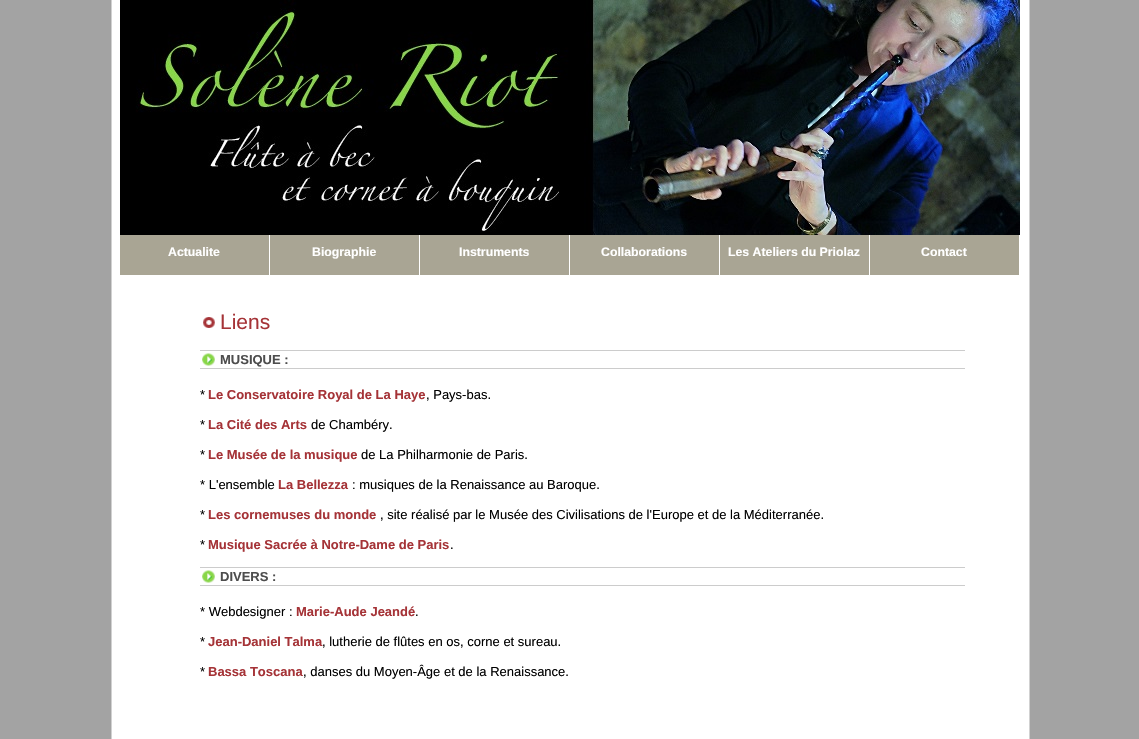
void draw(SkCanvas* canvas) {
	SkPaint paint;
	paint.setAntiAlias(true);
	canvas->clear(0xffffffff);
	canvas->drawImageRect(SkImages::DeferredFromEncodedData(SkData::MakeFromFileName("img1.png")), SkRect::MakeXYWH(0, 0, 1139, 739), SkSamplingOptions());
	canvas->drawImageRect(SkImages::DeferredFromEncodedData(SkData::MakeFromFileName("img2.png")), SkRect::MakeXYWH(120, 0, 900, 235), SkSamplingOptions());
	paint.setColor(0xffa9a594);
	canvas->drawRect(SkRect::MakeXYWH(120, 235, 149, 40), paint);
	SkFont f1(fontMgr->matchFamilyStyle("Liberation Sans", SkFontStyle::Bold()), 12.3);
	f1.setSubpixel(true);
	paint.setColor(0xffffffff);
	canvas->drawString("Actualite", 168, 256, f1, paint);
	paint.setColor(0xffa9a594);
	canvas->drawRect(SkRect::MakeXYWH(270, 235, 149, 40), paint);
	paint.setColor(0xffffffff);
	canvas->drawString("Biographie", 312, 256, f1, paint);
	paint.setColor(0xffa9a594);
	canvas->drawRect(SkRect::MakeXYWH(420, 235, 149, 40), paint);
	paint.setColor(0xffffffff);
	canvas->drawString("Instruments", 459, 256, f1, paint);
	paint.setColor(0xffa9a594);
	canvas->drawRect(SkRect::MakeXYWH(570, 235, 149, 40), paint);
	paint.setColor(0xffffffff);
	canvas->drawString("Collaborations", 601, 256, f1, paint);
	paint.setColor(0xffa9a594);
	canvas->drawRect(SkRect::MakeXYWH(720, 235, 149, 40), paint);
	paint.setColor(0xffffffff);
	canvas->drawString("Les Ateliers du Priolaz", 728, 256, f1, paint);
	paint.setColor(0xffa9a594);
	canvas->drawRect(SkRect::MakeXYWH(870, 235, 149, 40), paint);
	paint.setColor(0xffffffff);
	canvas->drawString("Contact", 921, 256, f1, paint);
	canvas->drawImageRect(SkImages::DeferredFromEncodedData(SkData::MakeFromFileName("img3.png")), SkRect::MakeXYWH(203, 317, 12, 11), SkSamplingOptions());
	SkFont f2(fontMgr->matchFamilyStyle("Liberation Sans", SkFontStyle::Normal()), 21);
	f2.setSubpixel(true);
	paint.setColor(0xffa53337);
	canvas->drawString("Liens", 220, 329, f2, paint);
	canvas->drawImageRect(SkImages::DeferredFromEncodedData(SkData::MakeFromFileName("img4.png")), SkRect::MakeXYWH(202, 353, 13, 13), SkSamplingOptions());
	paint.setColor(0xffcccccc);
	canvas->drawRect(SkRect::MakeXYWH(200, 350, 765, 1), paint);
	canvas->drawRect(SkRect::MakeXYWH(200, 368, 765, 1), paint);
	SkFont f3(fontMgr->matchFamilyStyle("Liberation Sans", SkFontStyle::Bold()), 13);
	f3.setSubpixel(true);
	paint.setColor(0xff4d4d4d);
	canvas->drawString("MUSIQUE :", 220, 364, f3, paint);
	SkFont f4(fontMgr->matchFamilyStyle("Liberation Sans", SkFontStyle::Normal()), 13);
	f4.setSubpixel(true);
	paint.setColor(0xff000000);
	canvas->drawString("*", 200, 399, f4, paint);
	paint.setColor(0xffa53337);
	canvas->drawString("Le Conservatoire Royal de La Haye", 208, 399, f3, paint);
	paint.setColor(0xff000000);
	canvas->drawString(", Pays-bas.", 426, 399, f4, paint);
	canvas->drawString("*", 200, 429, f4, paint);
	paint.setColor(0xffa53337);
	canvas->drawString("La Cité des Arts", 208, 429, f3, paint);
	paint.setColor(0xff000000);
	canvas->drawString("de Chambéry.", 311, 429, f4, paint);
	canvas->drawString("*", 200, 459, f4, paint);
	paint.setColor(0xffa53337);
	canvas->drawString("Le Musée de la musique", 208, 459, f3, paint);
	paint.setColor(0xff000000);
	canvas->drawString("de La Philharmonie de Paris.", 361, 459, f4, paint);
	canvas->drawString("* L'ensemble", 200, 489, f4, paint);
	paint.setColor(0xffa53337);
	canvas->drawString("La Bellezza", 278, 489, f3, paint);
	paint.setColor(0xff000000);
	canvas->drawString(": musiques de la Renaissance au Baroque.", 352, 489, f4, paint);
	canvas->drawString("*", 200, 519, f4, paint);
	paint.setColor(0xffa53337);
	canvas->drawString("Les cornemuses du monde", 208, 519, f3, paint);
	paint.setColor(0xff000000);
	canvas->drawString(", site réalisé par le Musée des Civilisations de l'Europe et de la Méditerranée.", 380, 519, f4, paint);
	canvas->drawString("*", 200, 549, f4, paint);
	paint.setColor(0xffa53337);
	canvas->drawString("Musique Sacrée à Notre-Dame de Paris", 208, 549, f3, paint);
	paint.setColor(0xff000000);
	canvas->drawString(".", 450, 549, f4, paint);
	canvas->drawImageRect(SkImages::DeferredFromEncodedData(SkData::MakeFromFileName("img4.png")), SkRect::MakeXYWH(202, 570, 13, 13), SkSamplingOptions());
	paint.setColor(0xffcccccc);
	canvas->drawRect(SkRect::MakeXYWH(200, 567, 765, 1), paint);
	canvas->drawRect(SkRect::MakeXYWH(200, 585, 765, 1), paint);
	paint.setColor(0xff4d4d4d);
	canvas->drawString("DIVERS :", 220, 581, f3, paint);
	paint.setColor(0xff000000);
	canvas->drawString("* Webdesigner :", 200, 616, f4, paint);
	paint.setColor(0xffa53337);
	canvas->drawString("Marie-Aude Jeandé", 296, 616, f3, paint);
	paint.setColor(0xff000000);
	canvas->drawString(".", 415, 616, f4, paint);
	canvas->drawString("*", 200, 646, f4, paint);
	paint.setColor(0xffa53337);
	canvas->drawString("Jean-Daniel Talma", 208, 646, f3, paint);
	paint.setColor(0xff000000);
	canvas->drawString(", lutherie de flûtes en os, corne et sureau.", 322, 646, f4, paint);
	canvas->drawString("*", 200, 676, f4, paint);
	paint.setColor(0xffa53337);
	canvas->drawString("Bassa Toscana", 208, 676, f3, paint);
	paint.setColor(0xff000000);
	canvas->drawString(", danses du Moyen-Âge et de la Renaissance.", 303, 676, f4, paint);
}
